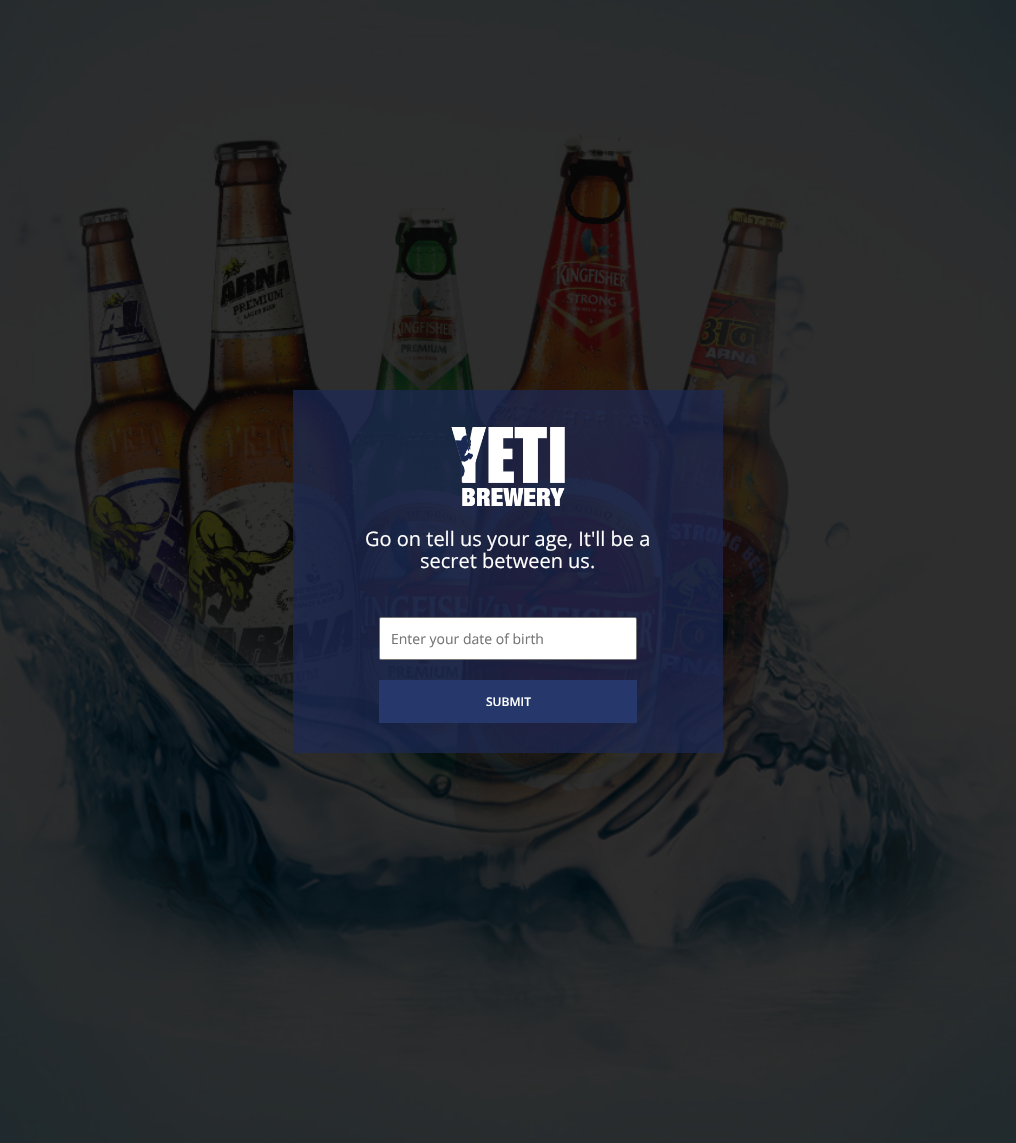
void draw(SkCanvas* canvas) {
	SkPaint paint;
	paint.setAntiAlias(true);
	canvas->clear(0xffffffff);
	canvas->drawImageRect(SkImages::DeferredFromEncodedData(SkData::MakeFromFileName("img1.png")), SkRect::MakeXYWH(0, 0, 1016, 1143), SkSamplingOptions());
	paint.setColor(0xb31b2855);
	canvas->drawRect(SkRect::MakeXYWH(293, 390, 430, 363), paint);
	canvas->drawImageRect(SkImages::DeferredFromEncodedData(SkData::MakeFromFileName("img2.png")), SkRect::MakeXYWH(451, 427, 114, 79), SkSamplingOptions());
	SkFont f1(fontMgr->matchFamilyStyle("Open Sans", SkFontStyle::Normal()), 20);
	f1.setSubpixel(true);
	paint.setColor(0xffffffff);
	canvas->drawString("Go on tell us your age, It'll be a", 365, 546, f1, paint);
	canvas->drawString("secret between us.", 420, 568, f1, paint);
	canvas->drawRoundRect(SkRect::MakeXYWH(379.5, 617.5, 257, 42), 1.5, 1.5, paint);
	paint.setStroke(true);
	paint.setStrokeWidth(1);
	paint.setColor(0xff767676);
	canvas->drawRoundRect(SkRect::MakeXYWH(379.5, 617.5, 257, 42), 1.5, 1.5, paint);
	SkFont f2(fontMgr->matchFamilyStyle("Open Sans", SkFontStyle::Normal()), 14);
	f2.setSubpixel(true);
	paint.setStroke(false);
	paint.setColor(0xff757575);
	canvas->drawString("Enter your date of birth", 391, 644, f2, paint);
	paint.setColor(0xff26376c);
	canvas->drawRect(SkRect::MakeXYWH(379, 680, 258, 43), paint);
	SkFont f3(fontMgr->matchFamilyStyle("Open Sans", SkFontStyle(600, SkFontStyle::kNormal_Width, SkFontStyle::kUpright_Slant)), 12);
	f3.setSubpixel(true);
	paint.setColor(0xffffffff);
	canvas->drawString("SUBMIT", 486, 706, f3, paint);
}
